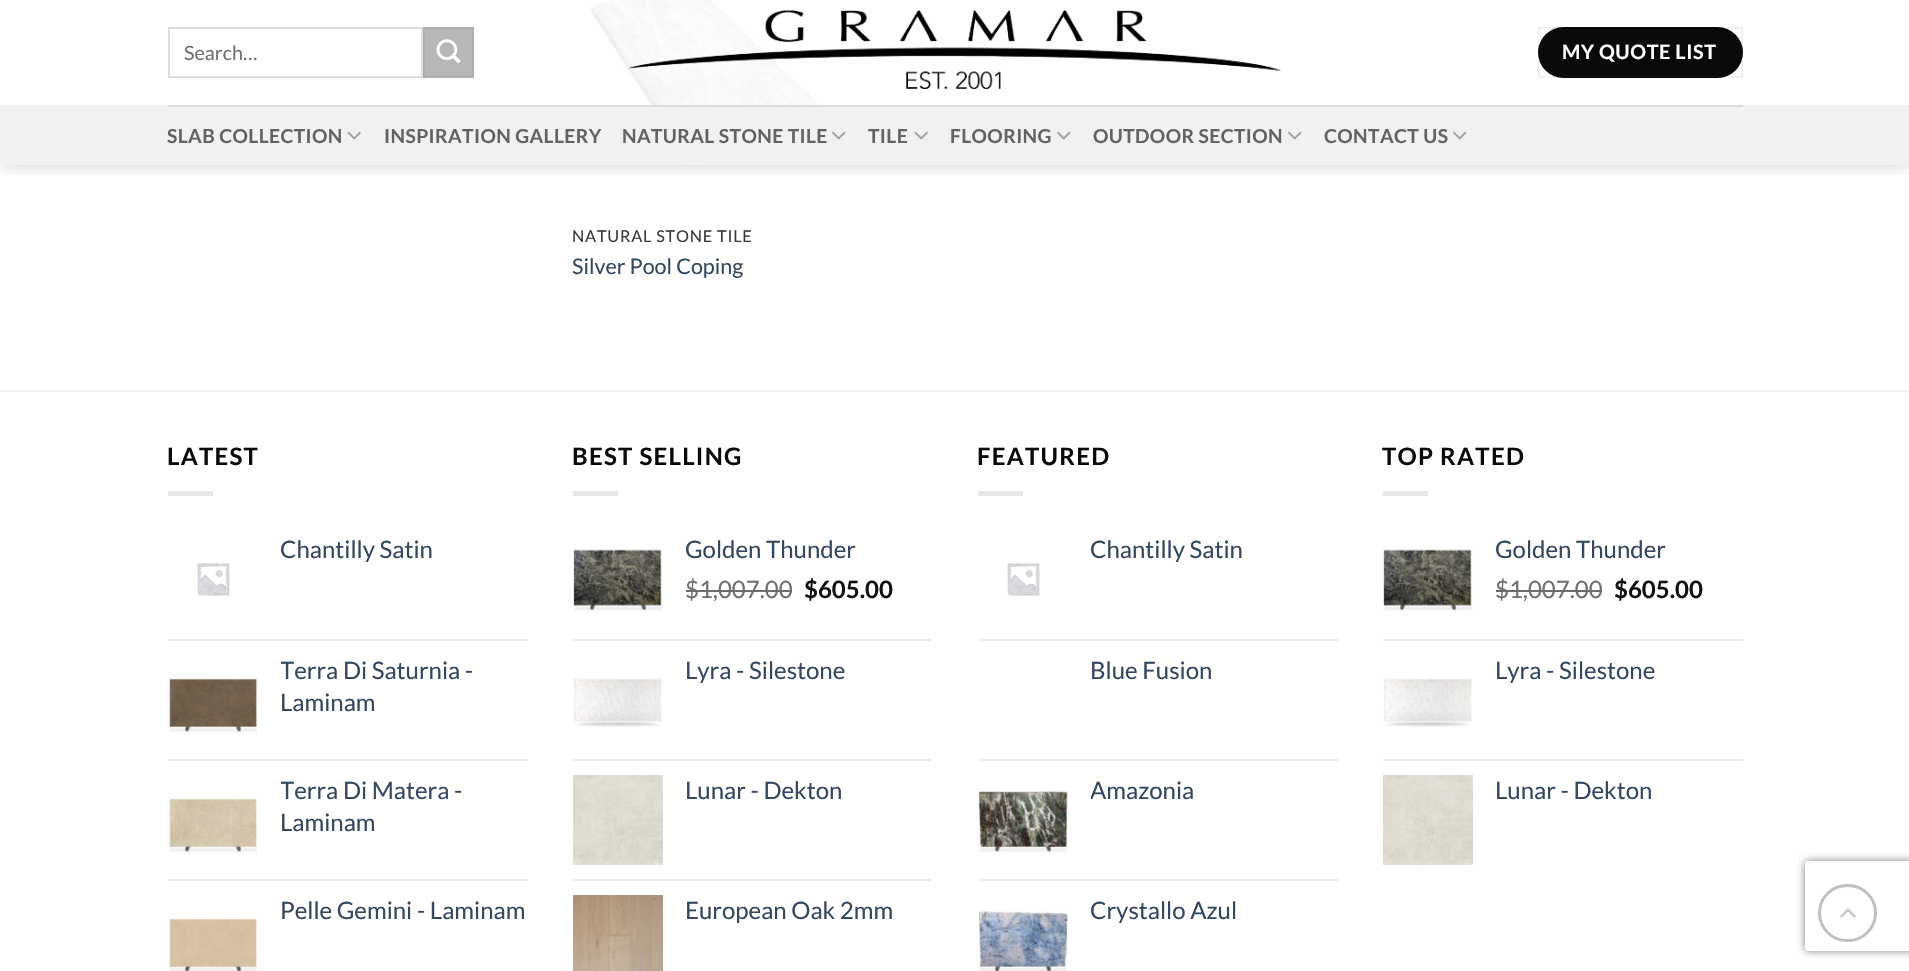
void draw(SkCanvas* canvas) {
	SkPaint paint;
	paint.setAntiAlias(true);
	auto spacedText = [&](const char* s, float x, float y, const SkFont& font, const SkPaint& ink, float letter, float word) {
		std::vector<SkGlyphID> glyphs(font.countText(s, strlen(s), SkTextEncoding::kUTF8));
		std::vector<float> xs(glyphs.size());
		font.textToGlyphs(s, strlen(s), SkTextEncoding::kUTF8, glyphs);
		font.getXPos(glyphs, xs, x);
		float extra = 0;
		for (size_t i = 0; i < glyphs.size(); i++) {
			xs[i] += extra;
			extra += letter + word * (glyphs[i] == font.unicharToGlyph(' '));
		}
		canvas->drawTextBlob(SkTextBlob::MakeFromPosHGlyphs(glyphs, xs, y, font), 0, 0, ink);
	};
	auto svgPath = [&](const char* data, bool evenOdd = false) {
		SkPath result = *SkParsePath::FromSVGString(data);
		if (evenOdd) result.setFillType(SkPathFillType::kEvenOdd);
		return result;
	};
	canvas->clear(0xffffffff);
	canvas->drawImageRect(SkImages::DeferredFromEncodedData(SkData::MakeFromFileName("img5.png")), SkRect::MakeXYWH(590, 0, 235, 169), SkSamplingOptions());
	canvas->save();
	canvas->clipRect(SkRect::MakeXYWH(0, 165, 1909, 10));
	paint.setColor(0x26000000);
	paint.setMaskFilter(SkMaskFilter::MakeBlur(kNormal_SkBlurStyle, 7.5));
	canvas->drawRect(SkRect::MakeXYWH(2, 2, 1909, 165), paint);
	paint.setMaskFilter(nullptr);
	canvas->restore();
	paint.setStroke(true);
	paint.setStrokeWidth(2);
	paint.setColor(0xffdddddd);
	canvas->drawRect(SkRect::MakeXYWH(169, 28, 253, 49), paint);
	SkFont f1(fontMgr->matchFamilyStyle("Lato", SkFontStyle::Normal()), 19.75);
	f1.setSubpixel(true);
	paint.setStroke(false);
	paint.setColor(0xff707070);
	canvas->drawString("Search…", 184, 60, f1, paint);
	paint.setColor(0xffb7b7b7);
	canvas->drawRect(SkRect::MakeXYWH(424, 28, 49, 49), paint);
	paint.setStroke(true);
	paint.setColor(0xffaeaeae);
	canvas->drawRect(SkRect::MakeXYWH(424, 28, 49, 49), paint);
	canvas->drawImageRect(SkImages::DeferredFromEncodedData(SkData::MakeFromFileName("img1.png")), SkRect::MakeXYWH(436, 39, 25, 24), SkSamplingOptions());
	canvas->drawImageRect(SkImages::DeferredFromEncodedData(SkData::MakeFromFileName("img2.png")), SkRect::MakeXYWH(628, 10, 653, 80), SkSamplingOptions());
	paint.setStroke(false);
	paint.setColor(0xff090a0a);
	canvas->drawRoundRect(SkRect::MakeXYWH(1538, 27, 205, 51), 25.5, 25.5, paint);
	paint.setStroke(true);
	paint.setColor(0x0d000000);
	canvas->drawRect(SkRect::MakeXYWH(1539, 28, 203, 49), paint);
	SkFont f2(fontMgr->matchFamilyStyle("Lato", SkFontStyle::Bold()), 19.75);
	f2.setSubpixel(true);
	paint.setStroke(false);
	paint.setColor(0xffffffff);
	spacedText("MY QUOTE LIST", 1562, 59, f2, paint, 0.6, 0);
	paint.setColor(0xfff1f1f1);
	canvas->drawRect(SkRect::MakeXYWH(0, 105, 1909, 60), paint);
	paint.setColor(0xffdadada);
	canvas->drawRect(SkRect::MakeXYWH(168, 105, 1575, 2), paint);
	SkFont f3(fontMgr->matchFamilyStyle("Lato", SkFontStyle::Bold()), 19.25);
	f3.setSubpixel(true);
	paint.setColor(0xff636363);
	spacedText("SLAB COLLECTION", 167, 143, f3, paint, 0.4, 0);
	canvas->drawImageRect(SkImages::DeferredFromEncodedData(SkData::MakeFromFileName("img3.png")), SkRect::MakeXYWH(347, 131, 14, 9), SkSamplingOptions());
	spacedText("INSPIRATION GALLERY", 384, 143, f3, paint, 0.4, 0);
	spacedText("NATURAL STONE TILE", 622, 143, f3, paint, 0.4, 0);
	canvas->drawImageRect(SkImages::DeferredFromEncodedData(SkData::MakeFromFileName("img4.png")), SkRect::MakeXYWH(832, 131, 14, 9), SkSamplingOptions());
	spacedText("TILE", 868, 143, f3, paint, 0.4, 0);
	canvas->drawImageRect(SkImages::DeferredFromEncodedData(SkData::MakeFromFileName("img3.png")), SkRect::MakeXYWH(914, 131, 14, 9), SkSamplingOptions());
	spacedText("FLOORING", 950, 143, f3, paint, 0.4, 0);
	canvas->drawImageRect(SkImages::DeferredFromEncodedData(SkData::MakeFromFileName("img4.png")), SkRect::MakeXYWH(1057, 131, 14, 9), SkSamplingOptions());
	spacedText("OUTDOOR SECTION", 1093, 143, f3, paint, 0.4, 0);
	canvas->drawImageRect(SkImages::DeferredFromEncodedData(SkData::MakeFromFileName("img4.png")), SkRect::MakeXYWH(1288, 131, 14, 9), SkSamplingOptions());
	spacedText("CONTACT US", 1324, 143, f3, paint, 0.4, 0);
	canvas->drawImageRect(SkImages::DeferredFromEncodedData(SkData::MakeFromFileName("img4.png")), SkRect::MakeXYWH(1453, 131, 14, 9), SkSamplingOptions());
	SkFont f4(fontMgr->matchFamilyStyle("Lato", SkFontStyle::Normal()), 16.25);
	f4.setSubpixel(true);
	paint.setColor(0xff3b3b3b);
	spacedText("NATURAL STONE TILE", 572, 242, f4, paint, 0.8, 0);
	SkFont f5(fontMgr->matchFamilyStyle("Lato", SkFontStyle::Normal()), 21.5);
	f5.setSubpixel(true);
	paint.setColor(0xff334862);
	canvas->drawString("Silver Pool Coping", 572, 274, f5, paint);
	paint.setColor(0xfff2f2f2);
	canvas->drawRect(SkRect::MakeXYWH(0, 390, 1909, 2), paint);
	SkFont f6(fontMgr->matchFamilyStyle("Lato", SkFontStyle::Bold()), 24);
	f6.setSubpixel(true);
	paint.setColor(0xff0a0a0a);
	spacedText("LATEST", 167, 465, f6, paint, 1.25, 0);
	paint.setColor(0xffe6e6e6);
	canvas->drawRect(SkRect::MakeXYWH(168, 491, 45, 5), paint);
	canvas->save();
	canvas->clipRect(SkRect::MakeXYWH(281, 534, 247, 32));
	SkFont f7(fontMgr->matchFamilyStyle("Lato", SkFontStyle::Normal()), 24);
	f7.setSubpixel(true);
	paint.setColor(0xff334862);
	canvas->drawString("Chantilly Satin", 280, 558, f7, paint);
	canvas->restore();
	canvas->drawImageRect(SkImages::DeferredFromEncodedData(SkData::MakeFromFileName("img6.png")), SkRect::MakeXYWH(197, 563, 33, 33), SkSamplingOptions());
	paint.setColor(0xffececec);
	canvas->drawRect(SkRect::MakeXYWH(168, 639, 360, 2), paint);
	canvas->save();
	canvas->clipRect(SkRect::MakeXYWH(281, 656, 247, 61));
	paint.setColor(0xff334862);
	canvas->drawString("Terra Di Saturnia -", 280, 679, f7, paint);
	canvas->restore();
	canvas->drawImageRect(SkImages::DeferredFromEncodedData(SkData::MakeFromFileName("img7.png")), SkRect::MakeXYWH(168, 677, 90, 57), SkSamplingOptions());
	canvas->drawString("Laminam", 280, 711, f7, paint);
	paint.setColor(0xffececec);
	canvas->drawRect(SkRect::MakeXYWH(168, 759, 360, 2), paint);
	canvas->save();
	canvas->clipRect(SkRect::MakeXYWH(281, 776, 247, 61));
	paint.setColor(0xff334862);
	canvas->drawString("Terra Di Matera -", 280, 799, f7, paint);
	canvas->restore();
	canvas->drawImageRect(SkImages::DeferredFromEncodedData(SkData::MakeFromFileName("img8.png")), SkRect::MakeXYWH(168, 797, 90, 57), SkSamplingOptions());
	canvas->drawString("Laminam", 280, 831, f7, paint);
	paint.setColor(0xffececec);
	canvas->drawRect(SkRect::MakeXYWH(168, 879, 360, 2), paint);
	paint.setColor(0xff334862);
	canvas->drawString("Pelle Gemini - Laminam", 280, 919, f7, paint);
	canvas->drawImageRect(SkImages::DeferredFromEncodedData(SkData::MakeFromFileName("img9.png")), SkRect::MakeXYWH(168, 917, 90, 54), SkSamplingOptions());
	paint.setColor(0xff0a0a0a);
	spacedText("BEST SELLING", 572, 465, f6, paint, 1.25, 0);
	paint.setColor(0xffe6e6e6);
	canvas->drawRect(SkRect::MakeXYWH(573, 491, 45, 5), paint);
	canvas->drawImageRect(SkImages::DeferredFromEncodedData(SkData::MakeFromFileName("img10.png")), SkRect::MakeXYWH(573, 548, 90, 65), SkSamplingOptions());
	canvas->save();
	canvas->clipRect(SkRect::MakeXYWH(686, 534, 247, 32));
	paint.setColor(0xff334862);
	canvas->drawString("Golden Thunder", 685, 558, f7, paint);
	canvas->restore();
	paint.setColor(0xff707070);
	canvas->drawString("$1,007.00", 685, 598, f7, paint);
	paint.setColor(0xff6c6c6c);
	canvas->drawRect(SkRect::MakeXYWH(686, 590, 106, 2), paint);
	paint.setColor(0xff111111);
	canvas->drawString("$605.00", 804, 598, f6, paint);
	paint.setColor(0xffececec);
	canvas->drawRect(SkRect::MakeXYWH(573, 639, 360, 2), paint);
	paint.setColor(0xff334862);
	canvas->drawString("Lyra - Silestone", 685, 679, f7, paint);
	canvas->drawImageRect(SkImages::DeferredFromEncodedData(SkData::MakeFromFileName("img11.png")), SkRect::MakeXYWH(573, 677, 89, 50), SkSamplingOptions());
	paint.setColor(0xffececec);
	canvas->drawRect(SkRect::MakeXYWH(573, 759, 360, 2), paint);
	canvas->drawImageRect(SkImages::DeferredFromEncodedData(SkData::MakeFromFileName("img12.png")), SkRect::MakeXYWH(573, 775, 90, 90), SkSamplingOptions());
	paint.setColor(0xff334862);
	canvas->drawString("Lunar - Dekton", 685, 799, f7, paint);
	paint.setColor(0xffececec);
	canvas->drawRect(SkRect::MakeXYWH(573, 879, 360, 2), paint);
	canvas->drawImageRect(SkImages::DeferredFromEncodedData(SkData::MakeFromFileName("img13.png")), SkRect::MakeXYWH(573, 895, 90, 76), SkSamplingOptions());
	paint.setColor(0xff334862);
	canvas->drawString("European Oak 2mm", 685, 919, f7, paint);
	paint.setColor(0xff0a0a0a);
	spacedText("FEATURED", 977, 465, f6, paint, 1.25, 0);
	paint.setColor(0xffe6e6e6);
	canvas->drawRect(SkRect::MakeXYWH(978, 491, 45, 5), paint);
	canvas->save();
	canvas->clipRect(SkRect::MakeXYWH(1091, 534, 247, 32));
	paint.setColor(0xff334862);
	canvas->drawString("Chantilly Satin", 1090, 558, f7, paint);
	canvas->restore();
	canvas->drawImageRect(SkImages::DeferredFromEncodedData(SkData::MakeFromFileName("img14.png")), SkRect::MakeXYWH(1007, 563, 33, 33), SkSamplingOptions());
	paint.setColor(0xffececec);
	canvas->drawRect(SkRect::MakeXYWH(978, 639, 360, 2), paint);
	paint.setColor(0xff334862);
	canvas->drawString("Blue Fusion", 1090, 679, f7, paint);
	paint.setColor(0xffececec);
	canvas->drawRect(SkRect::MakeXYWH(978, 759, 360, 2), paint);
	canvas->drawImageRect(SkImages::DeferredFromEncodedData(SkData::MakeFromFileName("img15.png")), SkRect::MakeXYWH(978, 789, 90, 65), SkSamplingOptions());
	canvas->save();
	canvas->clipRect(SkRect::MakeXYWH(1091, 776, 247, 31));
	paint.setColor(0xff334862);
	canvas->drawString("Amazonia", 1090, 799, f7, paint);
	canvas->restore();
	paint.setColor(0xffececec);
	canvas->drawRect(SkRect::MakeXYWH(978, 879, 360, 2), paint);
	canvas->drawImageRect(SkImages::DeferredFromEncodedData(SkData::MakeFromFileName("img16.png")), SkRect::MakeXYWH(978, 910, 90, 61), SkSamplingOptions());
	canvas->save();
	canvas->clipRect(SkRect::MakeXYWH(1091, 896, 247, 31));
	paint.setColor(0xff334862);
	canvas->drawString("Crystallo Azul", 1090, 919, f7, paint);
	canvas->restore();
	paint.setColor(0xff0a0a0a);
	spacedText("TOP RATED", 1382, 465, f6, paint, 1.25, 0);
	paint.setColor(0xffe6e6e6);
	canvas->drawRect(SkRect::MakeXYWH(1383, 491, 45, 5), paint);
	canvas->drawImageRect(SkImages::DeferredFromEncodedData(SkData::MakeFromFileName("img17.png")), SkRect::MakeXYWH(1383, 548, 90, 65), SkSamplingOptions());
	canvas->save();
	canvas->clipRect(SkRect::MakeXYWH(1496, 534, 247, 32));
	paint.setColor(0xff334862);
	canvas->drawString("Golden Thunder", 1495, 558, f7, paint);
	canvas->restore();
	paint.setColor(0xff707070);
	canvas->drawString("$1,007.00", 1495, 598, f7, paint);
	paint.setColor(0xff6c6c6c);
	canvas->drawRect(SkRect::MakeXYWH(1496, 590, 106, 2), paint);
	paint.setColor(0xff111111);
	canvas->drawString("$605.00", 1614, 598, f6, paint);
	paint.setColor(0xffececec);
	canvas->drawRect(SkRect::MakeXYWH(1383, 639, 360, 2), paint);
	paint.setColor(0xff334862);
	canvas->drawString("Lyra - Silestone", 1495, 679, f7, paint);
	canvas->drawImageRect(SkImages::DeferredFromEncodedData(SkData::MakeFromFileName("img18.png")), SkRect::MakeXYWH(1383, 677, 89, 50), SkSamplingOptions());
	paint.setColor(0xffececec);
	canvas->drawRect(SkRect::MakeXYWH(1383, 759, 360, 2), paint);
	canvas->drawImageRect(SkImages::DeferredFromEncodedData(SkData::MakeFromFileName("img19.png")), SkRect::MakeXYWH(1383, 775, 90, 90), SkSamplingOptions());
	paint.setColor(0xff334862);
	canvas->drawString("Lunar - Dekton", 1495, 799, f7, paint);
	canvas->save();
	canvas->clipPath(svgPath("M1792 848H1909V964H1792ZM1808 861H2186C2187.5 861 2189 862.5 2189 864V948C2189 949.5 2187.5 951 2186 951H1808C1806.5 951 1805 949.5 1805 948V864C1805 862.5 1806.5 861 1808 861Z", true), true);
	paint.setColor(0xff808080);
	paint.setMaskFilter(SkMaskFilter::MakeBlur(kNormal_SkBlurStyle, 4));
	canvas->drawRoundRect(SkRect::MakeXYWH(1805, 861, 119, 90), 3, 3, paint);
	paint.setMaskFilter(nullptr);
	canvas->restore();
	paint.setStroke(true);
	paint.setStrokeWidth(3);
	paint.setColor(0xffc0c0c0);
	canvas->drawRoundRect(SkRect::MakeXYWH(1819.5, 885.5, 56, 55), 27.5, 27.5, paint);
	canvas->drawImageRect(SkImages::DeferredFromEncodedData(SkData::MakeFromFileName("img20.png")), SkRect::MakeXYWH(1840, 908, 16, 10), SkSamplingOptions());
}
